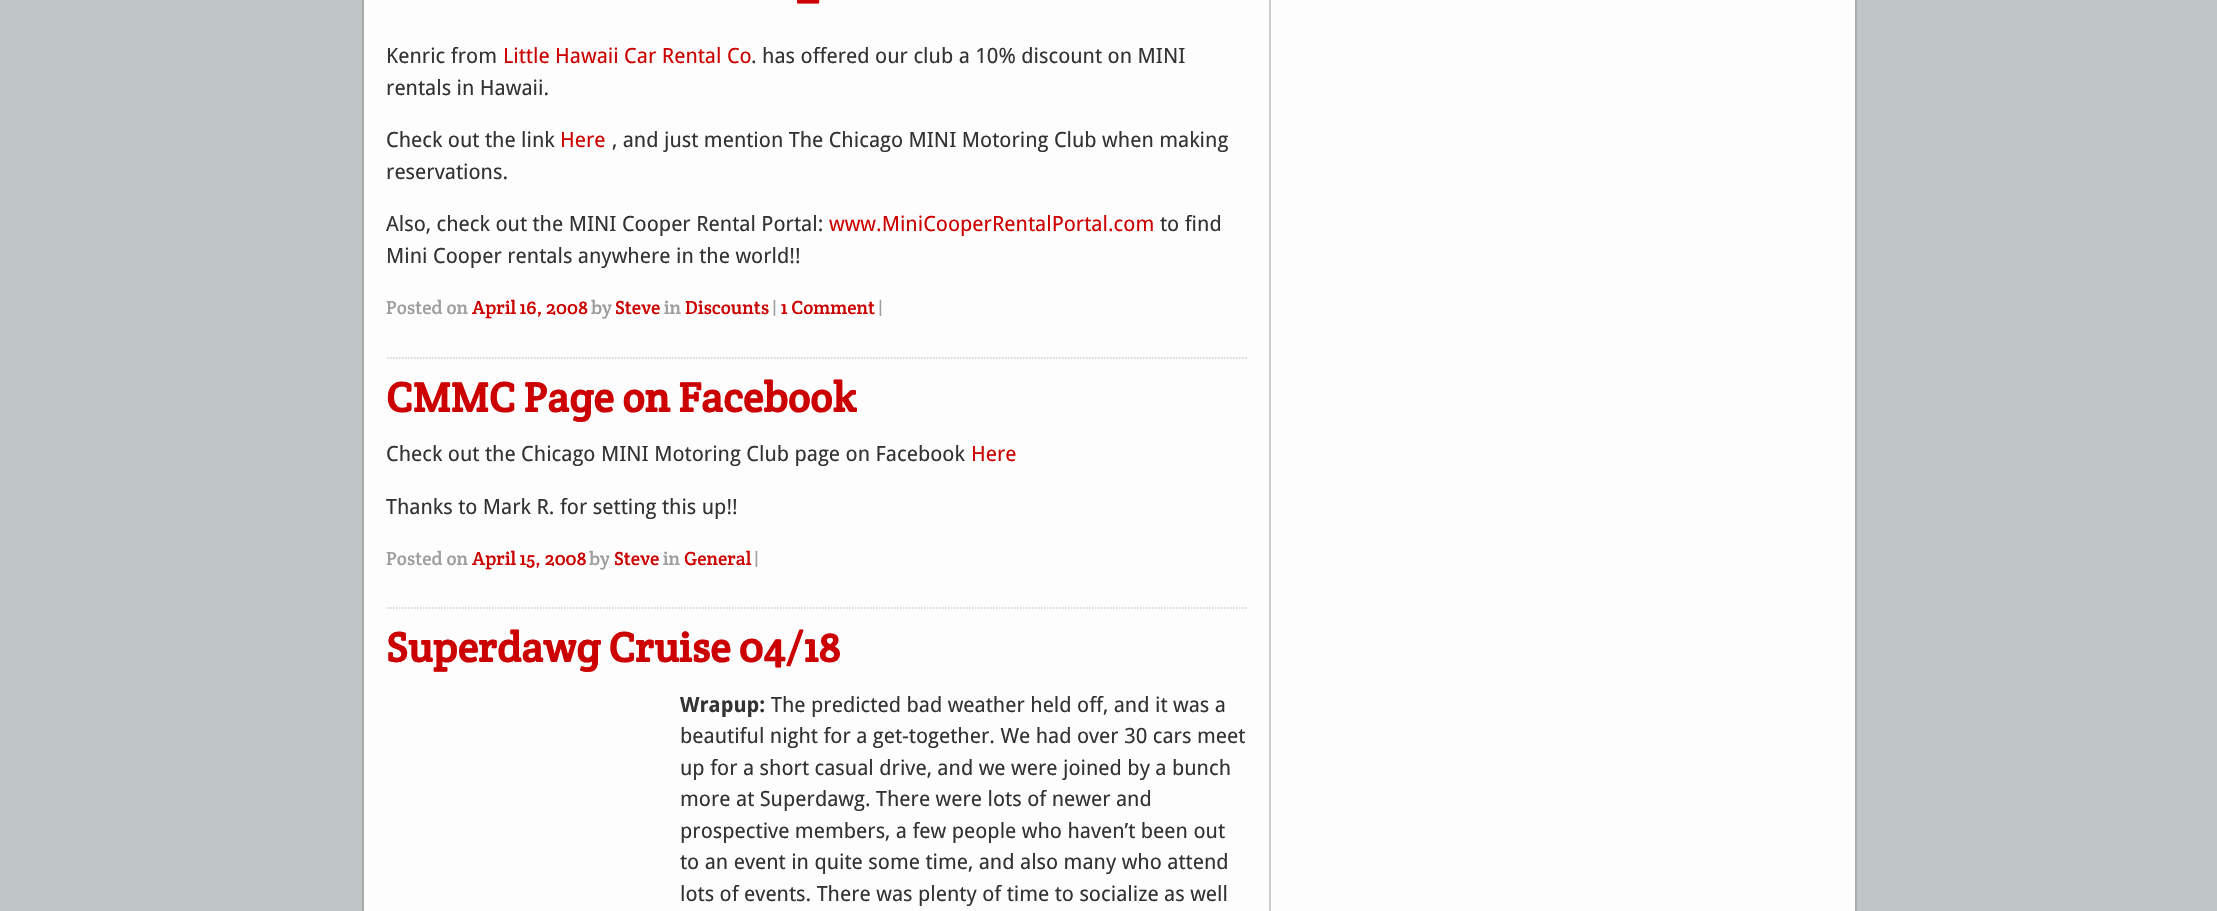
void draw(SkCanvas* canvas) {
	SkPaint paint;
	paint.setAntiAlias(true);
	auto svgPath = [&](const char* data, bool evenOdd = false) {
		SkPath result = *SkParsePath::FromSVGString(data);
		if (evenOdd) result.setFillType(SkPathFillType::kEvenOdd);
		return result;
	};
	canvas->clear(0xffbfc4c7);
	paint.setColor(0xfffdfdfd);
	canvas->drawRect(SkRect::MakeXYWH(363, -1, 1493, 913), paint);
	paint.setStroke(true);
	paint.setStrokeWidth(2);
	paint.setColor(0xffaaaaaa);
	canvas->drawRect(SkRect::MakeXYWH(363, -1, 1493, 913), paint);
	paint.setStroke(false);
	paint.setColor(0xffcccccc);
	canvas->drawRect(SkRect::MakeXYWH(1269, 0, 2, 911), paint);
	SkFont f1(fontMgr->matchFamilyStyle("Crete Round", SkFontStyle::Bold()), 42);
	f1.setSubpixel(true);
	paint.setColor(0xffcc0000);
	canvas->drawString("–", 797, 14, f1, paint);
	SkFont f2(fontMgr->matchFamilyStyle("Droid Sans", SkFontStyle::Normal()), 21);
	f2.setSubpixel(true);
	paint.setColor(0xff333333);
	canvas->drawString("Kenric from", 386, 63, f2, paint);
	paint.setColor(0xffcc0000);
	canvas->drawString("Little Hawaii Car Rental Co", 503, 63, f2, paint);
	paint.setColor(0xff333333);
	canvas->drawString(". has offered our club a 10% discount on MINI", 751, 63, f2, paint);
	canvas->drawString("rentals in Hawaii.", 386, 95, f2, paint);
	canvas->drawString("Check out the link", 386, 147, f2, paint);
	paint.setColor(0xffcc0000);
	canvas->drawString("Here", 560, 147, f2, paint);
	paint.setColor(0xff333333);
	canvas->drawString(", and just mention The Chicago MINI Motoring Club when making", 612, 147, f2, paint);
	canvas->drawString("reservations.", 386, 179, f2, paint);
	canvas->drawString("Also, check out the MINI Cooper Rental Portal:", 386, 231, f2, paint);
	paint.setColor(0xffcc0000);
	canvas->drawString("www.MiniCooperRentalPortal.com", 829, 231, f2, paint);
	paint.setColor(0xff333333);
	canvas->drawString("to find", 1160, 231, f2, paint);
	canvas->drawString("Mini Cooper rentals anywhere in the world!!", 386, 263, f2, paint);
	paint.setStroke(true);
	paint.setStrokeWidth(1.5);
	paint.setColor(0xffcccccc);
	paint.setPathEffect(SkDashPathEffect::Make({{1.5f, 1.5f}}, 0));
	canvas->drawPath(svgPath("M387 358H1248"), paint);
	paint.setPathEffect(nullptr);
	SkFont f3(fontMgr->matchFamilyStyle("Crete Round", SkFontStyle::Normal()), 19);
	f3.setSubpixel(true);
	paint.setStroke(false);
	paint.setColor(0xff9e9e9e);
	canvas->drawString("Posted on", 386, 314, f3, paint);
	paint.setColor(0xffcc0000);
	canvas->drawString("April 16, 2008", 472, 314, f3, paint);
	paint.setColor(0xff9e9e9e);
	canvas->drawString("by", 591, 314, f3, paint);
	paint.setColor(0xffcc0000);
	canvas->drawString("Steve", 615, 314, f3, paint);
	paint.setColor(0xff9e9e9e);
	canvas->drawString("in", 664, 314, f3, paint);
	paint.setColor(0xffcc0000);
	canvas->drawString("Discounts", 685, 314, f3, paint);
	paint.setColor(0xff9e9e9e);
	canvas->drawString("|", 772, 314, f3, paint);
	paint.setColor(0xffcc0000);
	canvas->drawString("1 Comment", 781, 314, f3, paint);
	paint.setColor(0xff9e9e9e);
	canvas->drawString("|", 878, 314, f3, paint);
	paint.setColor(0xffcc0000);
	canvas->drawString("CMMC Page on Facebook", 386, 412, f1, paint);
	paint.setColor(0xff333333);
	canvas->drawString("Check out the Chicago MINI Motoring Club page on Facebook", 386, 461, f2, paint);
	paint.setColor(0xffcc0000);
	canvas->drawString("Here", 971, 461, f2, paint);
	paint.setColor(0xff333333);
	canvas->drawString("Thanks to Mark R. for setting this up!!", 386, 514, f2, paint);
	paint.setStroke(true);
	paint.setColor(0xffcccccc);
	paint.setPathEffect(SkDashPathEffect::Make({{1.5f, 1.5f}}, 0));
	canvas->drawPath(svgPath("M387 608H1248"), paint);
	paint.setPathEffect(nullptr);
	paint.setStroke(false);
	paint.setColor(0xff9e9e9e);
	canvas->drawString("Posted on", 386, 565, f3, paint);
	paint.setColor(0xffcc0000);
	canvas->drawString("April 15, 2008", 472, 565, f3, paint);
	paint.setColor(0xff9e9e9e);
	canvas->drawString("by", 589, 565, f3, paint);
	paint.setColor(0xffcc0000);
	canvas->drawString("Steve", 614, 565, f3, paint);
	paint.setColor(0xff9e9e9e);
	canvas->drawString("in", 663, 565, f3, paint);
	paint.setColor(0xffcc0000);
	canvas->drawString("General", 684, 565, f3, paint);
	paint.setColor(0xff9e9e9e);
	canvas->drawString("|", 754, 565, f3, paint);
	paint.setColor(0xffcc0000);
	canvas->drawString("Superdawg Cruise 04/18", 386, 662, f1, paint);
	SkFont f4(fontMgr->matchFamilyStyle("Droid Sans", SkFontStyle::Bold()), 21);
	f4.setSubpixel(true);
	paint.setColor(0xff333333);
	canvas->drawString("Wrapup:", 680, 712, f4, paint);
	canvas->drawString("The predicted bad weather held off, and it was a", 771, 712, f2, paint);
	canvas->drawString("beautiful night for a get-together. We had over 30 cars meet", 680, 743, f2, paint);
	canvas->drawString("up for a short casual drive, and we were joined by a bunch", 680, 775, f2, paint);
	canvas->drawString("more at Superdawg. There were lots of newer and", 680, 806, f2, paint);
	canvas->drawString("prospective members, a few people who haven’t been out", 680, 838, f2, paint);
	canvas->drawString("to an event in quite some time, and also many who attend", 680, 869, f2, paint);
	canvas->drawString("lots of events. There was plenty of time to socialize as well", 680, 901, f2, paint);
}
